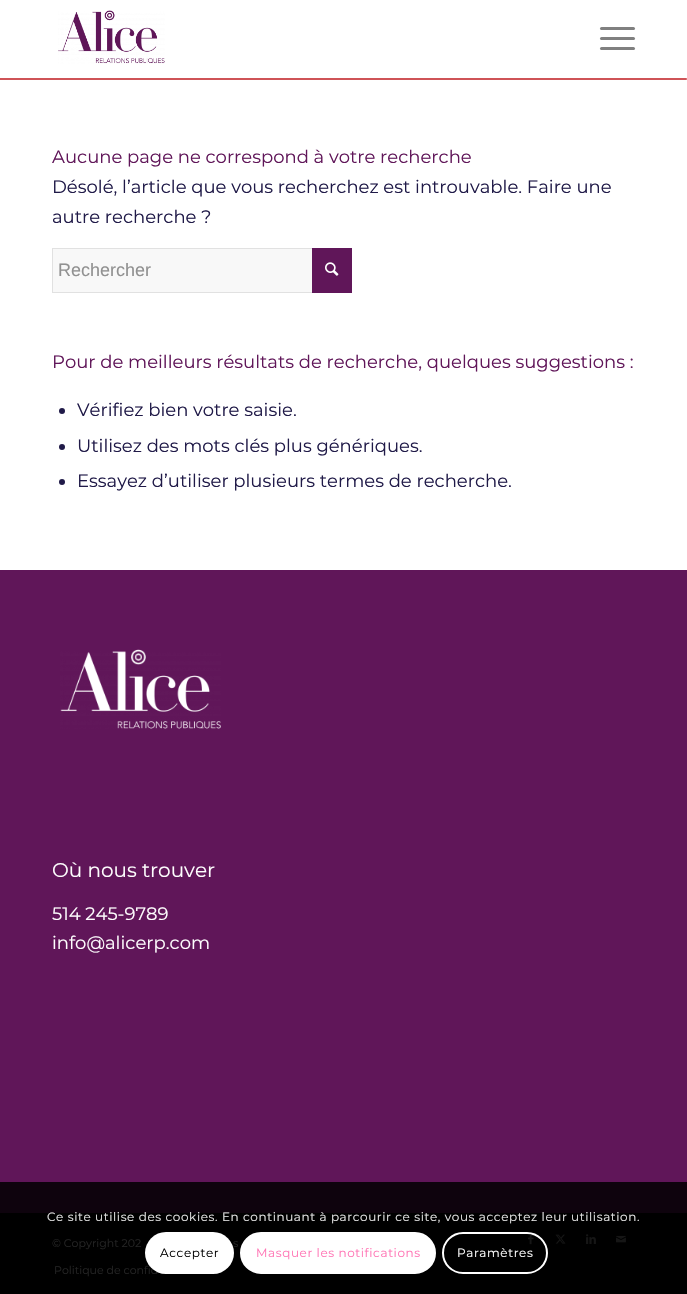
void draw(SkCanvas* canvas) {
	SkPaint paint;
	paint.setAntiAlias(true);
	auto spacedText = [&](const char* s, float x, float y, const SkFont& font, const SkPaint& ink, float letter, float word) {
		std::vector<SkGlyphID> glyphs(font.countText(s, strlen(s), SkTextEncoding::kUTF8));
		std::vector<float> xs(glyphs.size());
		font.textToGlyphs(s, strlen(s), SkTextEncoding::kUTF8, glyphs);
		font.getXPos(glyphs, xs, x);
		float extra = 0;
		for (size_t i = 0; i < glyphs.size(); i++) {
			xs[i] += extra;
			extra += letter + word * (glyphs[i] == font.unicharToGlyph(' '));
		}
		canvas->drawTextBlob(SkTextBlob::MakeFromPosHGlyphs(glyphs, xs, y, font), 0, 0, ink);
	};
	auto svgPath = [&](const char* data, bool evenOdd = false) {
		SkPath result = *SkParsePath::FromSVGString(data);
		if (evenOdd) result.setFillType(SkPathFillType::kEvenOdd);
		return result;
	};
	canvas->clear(0xffffffff);
	canvas->drawImageRect(SkImages::DeferredFromEncodedData(SkData::MakeFromFileName("img1.png")), SkRect::MakeXYWH(58, 10, 107, 54), SkSamplingOptions());
	paint.setColor(0xff808080);
	canvas->drawRoundRect(SkRect::MakeXYWH(600, 37, 35, 3), 1.5, 1.5, paint);
	canvas->drawRoundRect(SkRect::MakeXYWH(600, 27, 35, 3), 1.5, 1.5, paint);
	canvas->drawRoundRect(SkRect::MakeXYWH(600, 47, 35, 3), 1.5, 1.5, paint);
	paint.setColor(0xffcf5357);
	canvas->drawPath(svgPath("M0 78H686C686.5 78 687 78.5 687 79C687 79.5 686.5 80 686 80H0Z"), paint);
	SkFont f1(fontMgr->matchFamilyStyle("Montserrat", SkFontStyle(100, SkFontStyle::kNormal_Width, SkFontStyle::kUpright_Slant)), 18);
	f1.setSubpixel(true);
	paint.setColor(0xff601659);
	canvas->drawString("Aucune page ne correspond à votre recherche", 52, 163, f1, paint);
	paint.setColor(0xff201a48);
	canvas->drawString("Désolé, l’article que vous recherchez est introuvable. Faire une", 52, 193, f1, paint);
	canvas->drawString("autre recherche ?", 52, 223, f1, paint);
	paint.setColor(0xfff8f8f8);
	canvas->drawRect(SkRect::MakeXYWH(53, 249, 259, 43), paint);
	paint.setStroke(true);
	paint.setStrokeWidth(1);
	paint.setColor(0xffe1e1e1);
	canvas->drawRect(SkRect::MakeXYWH(52.5, 248.5, 299, 44), paint);
	SkFont f2(fontMgr->matchFamilyStyle("Liberation Sans", SkFontStyle::Normal()), 18);
	f2.setSubpixel(true);
	paint.setStroke(false);
	paint.setColor(0xff919191);
	canvas->drawString("Rechercher", 58, 276, f2, paint);
	paint.setColor(0xff601659);
	canvas->drawRect(SkRect::MakeXYWH(312, 248, 40, 45), paint);
	canvas->drawImageRect(SkImages::DeferredFromEncodedData(SkData::MakeFromFileName("img2.png")), SkRect::MakeXYWH(325, 262, 14, 14), SkSamplingOptions());
	canvas->drawString("Pour de meilleurs résultats de recherche, quelques suggestions :", 52, 368, f1, paint);
	paint.setColor(0xff201a48);
	canvas->drawCircle(62, 411, 3, paint);
	canvas->drawString("Vérifiez bien votre saisie.", 77, 416, f1, paint);
	canvas->drawCircle(62, 447, 3, paint);
	canvas->drawString("Utilisez des mots clés plus génériques.", 77, 452, f1, paint);
	canvas->drawCircle(62, 482, 3, paint);
	canvas->drawString("Essayez d’utiliser plusieurs termes de recherche.", 77, 487, f1, paint);
	paint.setColor(0xff601659);
	canvas->drawRect(SkRect::MakeXYWH(0, 570, 687, 612), paint);
	paint.setColor(0xff0e030d);
	canvas->drawRect(SkRect::MakeXYWH(0, 1182, 687, 31), paint);
	canvas->drawImageRect(SkImages::DeferredFromEncodedData(SkData::MakeFromFileName("img3.png")), SkRect::MakeXYWH(60, 649, 161, 80), SkSamplingOptions());
	SkFont f3(fontMgr->matchFamilyStyle("Montserrat", SkFontStyle(100, SkFontStyle::kNormal_Width, SkFontStyle::kUpright_Slant)), 20);
	f3.setSubpixel(true);
	paint.setColor(0xffffffff);
	canvas->drawString("Où nous trouver", 52, 877, f3, paint);
	canvas->drawString("514 245-9789", 52, 920, f1, paint);
	canvas->drawString("info@alicerp.com", 52, 949, f1, paint);
	paint.setColor(0xff000000);
	canvas->drawRect(SkRect::MakeXYWH(0, 1213, 687, 81), paint);
	SkFont f4(fontMgr->matchFamilyStyle("Montserrat", SkFontStyle(100, SkFontStyle::kNormal_Width, SkFontStyle::kUpright_Slant)), 11);
	f4.setSubpixel(true);
	paint.setColor(0xff242424);
	canvas->drawString("© Copyright 202", 52, 1247, f4, paint);
	canvas->drawString("s", 233, 1247, f4, paint);
	canvas->drawImageRect(SkImages::DeferredFromEncodedData(SkData::MakeFromFileName("img4.png")), SkRect::MakeXYWH(528, 1234, 6, 11), SkSamplingOptions());
	canvas->drawImageRect(SkImages::DeferredFromEncodedData(SkData::MakeFromFileName("img5.png")), SkRect::MakeXYWH(555, 1234, 11, 10), SkSamplingOptions());
	canvas->drawImageRect(SkImages::DeferredFromEncodedData(SkData::MakeFromFileName("img6.png")), SkRect::MakeXYWH(586, 1234, 10, 10), SkSamplingOptions());
	canvas->drawImageRect(SkImages::DeferredFromEncodedData(SkData::MakeFromFileName("img7.png")), SkRect::MakeXYWH(616, 1235, 10, 8), SkSamplingOptions());
	canvas->drawString("Politique de confid", 54, 1274, f4, paint);
	SkFont f5(fontMgr->matchFamilyStyle("Montserrat", SkFontStyle(100, SkFontStyle::kNormal_Width, SkFontStyle::kUpright_Slant)), 12);
	f5.setSubpixel(true);
	paint.setColor(0xffe6e6e6);
	spacedText("Ce site utilise des cookies. En continuant à parcourir ce site, vous acceptez leur utilisation.", 47, 1221, f5, paint, 0.6, 0);
	paint.setColor(0xffffffff);
	canvas->drawRoundRect(SkRect::MakeXYWH(145, 1232, 89, 42), 21, 21, paint);
	paint.setColor(0xff000000);
	spacedText("Accepter", 160, 1257, f5, paint, 0.6, 0);
	paint.setColor(0xffffffff);
	canvas->drawRoundRect(SkRect::MakeXYWH(241, 1233, 194, 40), 20, 20, paint);
	paint.setStroke(true);
	paint.setStrokeWidth(2);
	canvas->drawRoundRect(SkRect::MakeXYWH(241, 1233, 194, 40), 20, 20, paint);
	paint.setStroke(false);
	paint.setColor(0xffff75b5);
	spacedText("Masquer les notifications", 256, 1257, f5, paint, 0.6, 0);
	paint.setStroke(true);
	paint.setColor(0xffffffff);
	canvas->drawRoundRect(SkRect::MakeXYWH(443, 1233, 104, 40), 20, 20, paint);
	paint.setStroke(false);
	spacedText("Paramètres", 457, 1257, f5, paint, 0.6, 0);
}
